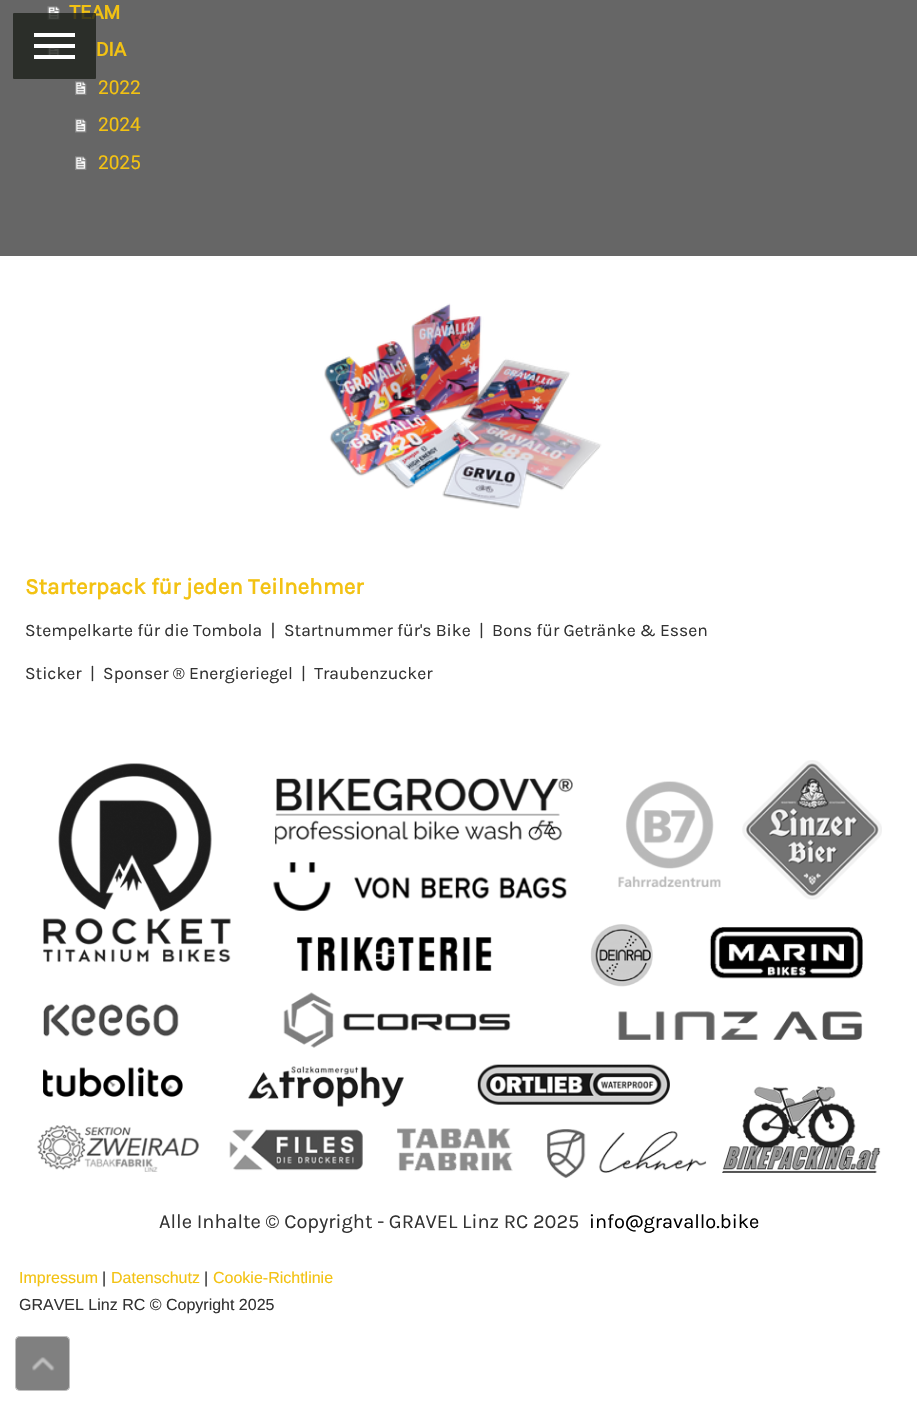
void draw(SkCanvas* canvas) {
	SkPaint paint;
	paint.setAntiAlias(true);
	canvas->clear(0xffffffff);
	paint.setColor(0xff666666);
	canvas->drawRect(SkRect::MakeXYWH(0, 0, 917, 256), paint);
	canvas->drawImageRect(SkImages::DeferredFromEncodedData(SkData::MakeFromFileName("img1.png")), SkRect::MakeXYWH(47, 6, 13, 14), SkSamplingOptions());
	SkFont f1(fontMgr->matchFamilyStyle("Roboto", SkFontStyle::Bold()), 19);
	f1.setSubpixel(true);
	paint.setColor(0xfff3c212);
	canvas->drawString("TEAM", 69, 19, f1, paint);
	canvas->drawImageRect(SkImages::DeferredFromEncodedData(SkData::MakeFromFileName("img2.png")), SkRect::MakeXYWH(47, 43, 13, 12), SkSamplingOptions());
	canvas->drawString("DIA", 96, 56, f1, paint);
	canvas->drawImageRect(SkImages::DeferredFromEncodedData(SkData::MakeFromFileName("img3.png")), SkRect::MakeXYWH(75, 81, 12, 14), SkSamplingOptions());
	SkFont f2(fontMgr->matchFamilyStyle("Roboto", SkFontStyle::Normal()), 19);
	f2.setSubpixel(true);
	canvas->drawString("2022", 98, 94, f2, paint);
	canvas->drawImageRect(SkImages::DeferredFromEncodedData(SkData::MakeFromFileName("img4.png")), SkRect::MakeXYWH(75, 118, 12, 15), SkSamplingOptions());
	canvas->drawString("2024", 98, 131, f2, paint);
	canvas->drawImageRect(SkImages::DeferredFromEncodedData(SkData::MakeFromFileName("img3.png")), SkRect::MakeXYWH(75, 156, 12, 14), SkSamplingOptions());
	canvas->drawString("2025", 98, 169, f2, paint);
	canvas->drawImageRect(SkImages::DeferredFromEncodedData(SkData::MakeFromFileName("img5.png")), SkRect::MakeXYWH(324, 303, 278, 206), SkSamplingOptions());
	SkFont f3(fontMgr->matchFamilyStyle("Karla", SkFontStyle::Bold()), 22.5);
	f3.setSubpixel(true);
	canvas->drawString("Starterpack für jeden Teilnehmer", 25, 594, f3, paint);
	SkFont f4(fontMgr->matchFamilyStyle("Karla", SkFontStyle::Normal()), 17.5);
	f4.setSubpixel(true);
	paint.setColor(0xff333333);
	canvas->drawString("Stempelkarte für die Tombola  |", 25, 636, f4, paint);
	canvas->drawString("Startnummer für's Bike  |", 284, 636, f4, paint);
	canvas->drawString("Bons für Getränke & Essen", 492, 636, f4, paint);
	canvas->drawString("Sticker  |  Sponser ® Energieriegel", 25, 679, f4, paint);
	canvas->drawString("|  Traubenzucker", 301, 679, f4, paint);
	canvas->drawImageRect(SkImages::DeferredFromEncodedData(SkData::MakeFromFileName("img6.png")), SkRect::MakeXYWH(37, 760, 845, 418), SkSamplingOptions());
	SkFont f5(fontMgr->matchFamilyStyle("Karla", SkFontStyle::Normal()), 20);
	f5.setSubpixel(true);
	canvas->drawString("Alle Inhalte © Copyright - GRAVEL Linz RC 2025", 159, 1228, f5, paint);
	paint.setColor(0xff000000);
	canvas->drawString("info@gravallo.bike", 589, 1228, f5, paint);
	SkFont f6(fontMgr->matchFamilyStyle("Liberation Sans", SkFontStyle::Normal()), 16);
	f6.setSubpixel(true);
	paint.setColor(0xfff3c212);
	canvas->drawString("Impressum", 19, 1283, f6, paint);
	paint.setColor(0xff333333);
	canvas->drawString("|", 102, 1283, f6, paint);
	paint.setColor(0xfff3c212);
	canvas->drawString("Datenschutz", 111, 1283, f6, paint);
	paint.setColor(0xff333333);
	canvas->drawString("|", 204, 1283, f6, paint);
	paint.setColor(0xfff3c212);
	canvas->drawString("Cookie-Richtlinie", 213, 1283, f6, paint);
	paint.setColor(0xff333333);
	canvas->drawString("GRAVEL Linz RC © Copyright 2025", 19, 1310, f6, paint);
	paint.setColor(0xcc1c1f19);
	canvas->drawRoundRect(SkRect::MakeXYWH(13, 13, 83, 66), 1, 1, paint);
	paint.setColor(0xffffffff);
	canvas->drawRect(SkRect::MakeXYWH(34, 44, 41, 4), paint);
	canvas->drawRect(SkRect::MakeXYWH(34, 33, 41, 4), paint);
	canvas->drawRect(SkRect::MakeXYWH(34, 55, 41, 4), paint);
	paint.setColor(0xff808080);
	canvas->drawRoundRect(SkRect::MakeXYWH(15, 1336, 55, 55), 5, 5, paint);
	paint.setStroke(true);
	paint.setStrokeWidth(1);
	paint.setColor(0x80ffffff);
	canvas->drawRoundRect(SkRect::MakeXYWH(15.5, 1336.5, 54, 54), 4.5, 4.5, paint);
	canvas->drawImageRect(SkImages::DeferredFromEncodedData(SkData::MakeFromFileName("img7.png")), SkRect::MakeXYWH(32, 1357, 23, 14), SkSamplingOptions());
}
